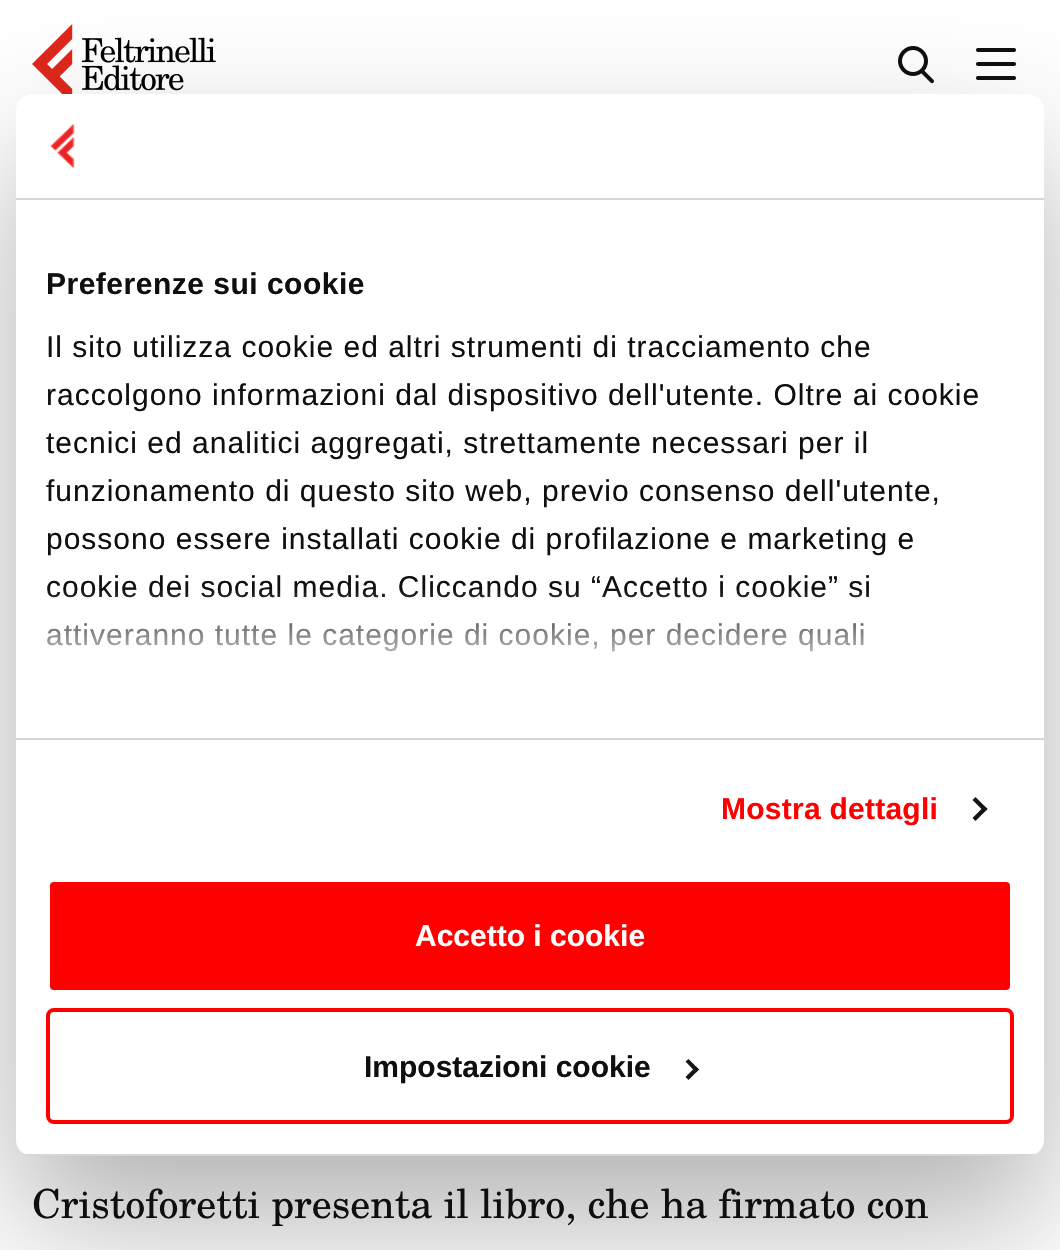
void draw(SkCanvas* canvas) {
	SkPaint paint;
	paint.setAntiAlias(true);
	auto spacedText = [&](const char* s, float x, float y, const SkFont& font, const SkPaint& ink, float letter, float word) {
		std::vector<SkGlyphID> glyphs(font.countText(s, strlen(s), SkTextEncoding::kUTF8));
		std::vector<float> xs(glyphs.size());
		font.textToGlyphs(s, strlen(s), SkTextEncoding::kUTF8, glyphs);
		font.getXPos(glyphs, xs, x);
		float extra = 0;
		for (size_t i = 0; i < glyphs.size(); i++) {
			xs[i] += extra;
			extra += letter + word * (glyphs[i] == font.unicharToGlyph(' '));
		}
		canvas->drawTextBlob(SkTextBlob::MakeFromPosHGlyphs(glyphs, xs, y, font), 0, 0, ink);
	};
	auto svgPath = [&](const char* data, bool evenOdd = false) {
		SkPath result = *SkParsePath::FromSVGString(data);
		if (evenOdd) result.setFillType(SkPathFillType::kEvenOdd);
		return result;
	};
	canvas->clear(0xffffffff);
	canvas->drawImageRect(SkImages::DeferredFromEncodedData(SkData::MakeFromFileName("img2.png")), SkRect::MakeXYWH(32, 24, 184, 70), SkSamplingOptions());
	canvas->drawImageRect(SkImages::DeferredFromEncodedData(SkData::MakeFromFileName("img3.png")), SkRect::MakeXYWH(898, 46, 36, 38), SkSamplingOptions());
	canvas->drawImageRect(SkImages::DeferredFromEncodedData(SkData::MakeFromFileName("img4.png")), SkRect::MakeXYWH(976, 48, 40, 32), SkSamplingOptions());
	paint.setColor(0x4d000000);
	paint.setMaskFilter(SkMaskFilter::MakeBlur(kNormal_SkBlurStyle, 68));
	canvas->drawRoundRect(SkRect::MakeXYWH(16, 158, 1028, 1062), 16, 16, paint);
	paint.setMaskFilter(nullptr);
	paint.setColor(0xffffffff);
	canvas->drawRoundRect(SkRect::MakeXYWH(16, 94, 1028, 1062), 16, 16, paint);
	paint.setColor(0xffd6d6d6);
	canvas->drawRect(SkRect::MakeXYWH(16, 198, 1028, 2), paint);
	canvas->drawImageRect(SkImages::DeferredFromEncodedData(SkData::MakeFromFileName("img1.png")), SkRect::MakeXYWH(50, 124, 25, 45), SkSamplingOptions());
	canvas->drawRect(SkRect::MakeXYWH(16, 738, 1028, 2), paint);
	SkFont f1(fontMgr->matchFamilyStyle("Liberation Sans", SkFontStyle::Bold()), 30);
	f1.setSubpixel(true);
	paint.setColor(0xff0f0f0f);
	spacedText("Preferenze sui cookie", 46, 294, f1, paint, 0.5, 0);
	SkFont f2(fontMgr->matchFamilyStyle("Liberation Sans", SkFontStyle::Normal()), 30);
	f2.setSubpixel(true);
	spacedText("Il sito utilizza cookie ed altri strumenti di tracciamento che", 46, 357, f2, paint, 1, 0);
	spacedText("raccolgono informazioni dal dispositivo dell'utente. Oltre ai cookie", 46, 405, f2, paint, 1, 0);
	spacedText("tecnici ed analitici aggregati, strettamente necessari per il", 46, 453, f2, paint, 1, 0);
	spacedText("funzionamento di questo sito web, previo consenso dell'utente,", 46, 501, f2, paint, 1, 0);
	spacedText("possono essere installati cookie di profilazione e marketing e", 46, 549, f2, paint, 1, 0);
	spacedText("cookie dei social media. Cliccando su “Accetto i cookie” si", 46, 597, f2, paint, 1, 0);
	spacedText("attiveranno tutte le categorie di cookie, per decidere quali", 46, 645, f2, paint, 1, 0);
	{
		const SkColor colors[] = {0xffffffff, 0xccffffff, 0x00ffffff};
		const float stops[] = {0, 0.5, 1};
		const SkPoint ends[] = {{517, 738}, {517, 588}};
		paint.setShader(SkGradientShader::MakeLinear(ends, colors, stops, 3, SkTileMode::kClamp));
		paint.setAlpha(255);
	}
	canvas->drawRect(SkRect::MakeXYWH(47, 590, 822, 62), paint);
	paint.setShader(nullptr);
	paint.setColor(0xffff0000);
	spacedText("Mostra dettagli", 721, 819, f1, paint, 0.25, 0);
	paint.setColor(0xff141414);
	canvas->drawPath(svgPath("M975.5 797L987.5 809L984.5 812L972.5 800Z"), paint);
	canvas->drawPath(svgPath("M984.5 806L987.5 809L975.5 821L972.5 818Z"), paint);
	canvas->save();
	canvas->clipPath(svgPath("M32 94H1028C1037 94 1044 101 1044 110V1140C1044 1149 1037 1156 1028 1156H32C23 1156 16 1149 16 1140V110C16 101 23 94 32 94Z"), true);
	paint.setColor(0xffd6d6d6);
	canvas->drawRect(SkRect::MakeXYWH(16, 1154, 1028, 2), paint);
	canvas->restore();
	paint.setColor(0xffff0000);
	canvas->drawRoundRect(SkRect::MakeXYWH(48, 880, 964, 112), 6, 6, paint);
	paint.setStroke(true);
	paint.setStrokeWidth(4);
	paint.setColor(0xffffffff);
	canvas->drawRoundRect(SkRect::MakeXYWH(48, 880, 964, 112), 6, 6, paint);
	paint.setStroke(false);
	canvas->drawString("Accetto i cookie", 415, 946, f1, paint);
	paint.setStroke(true);
	paint.setColor(0xffff0000);
	canvas->drawRoundRect(SkRect::MakeXYWH(48, 1010, 964, 112), 6, 6, paint);
	paint.setStroke(false);
	paint.setColor(0xff0f0f0f);
	canvas->drawString("Impostazioni cookie", 364, 1077, f1, paint);
	paint.setColor(0xff141414);
	canvas->drawPath(svgPath("M688.5 1059L699 1069.5L696 1072.5L685.5 1061.5Z"), paint);
	canvas->drawPath(svgPath("M696 1066.5L699 1069.5L688.5 1080L685.5 1077Z"), paint);
	SkFont f3(fontMgr->matchFamilyStyle("TeX Gyre Schola", SkFontStyle::Normal()), 40);
	f3.setSubpixel(true);
	paint.setColor(0xff0f0f0f);
	canvas->drawString("Cristoforetti presenta il libro, che ha firmato con", 32, 1218, f3, paint);
}
